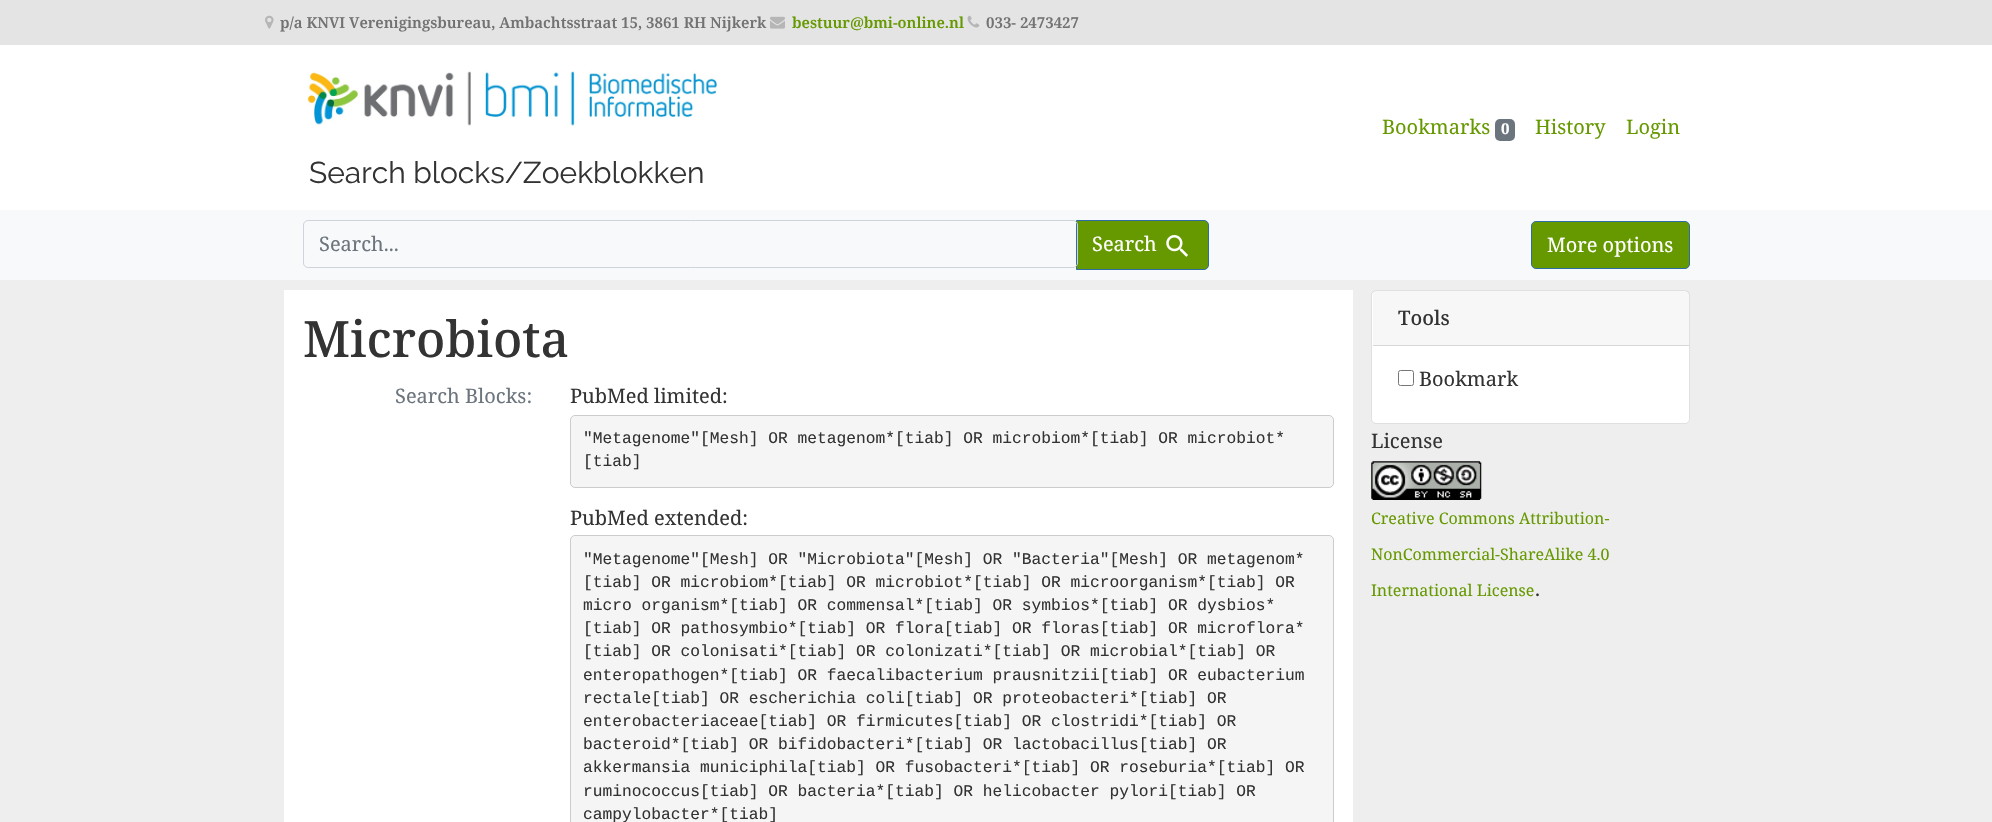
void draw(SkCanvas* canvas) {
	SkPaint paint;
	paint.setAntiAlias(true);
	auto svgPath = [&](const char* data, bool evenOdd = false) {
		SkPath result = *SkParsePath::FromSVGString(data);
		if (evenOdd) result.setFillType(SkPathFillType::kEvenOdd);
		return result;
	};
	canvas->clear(0xffeeeeee);
	paint.setColor(0xffe4e4e4);
	canvas->drawRect(SkRect::MakeXYWH(0, 0, 1992, 45), paint);
	canvas->drawImageRect(SkImages::DeferredFromEncodedData(SkData::MakeFromFileName("img1.png")), SkRect::MakeXYWH(265, 15, 9, 14), SkSamplingOptions());
	SkFont f1(fontMgr->matchFamilyStyle("Noto Serif", SkFontStyle(600, SkFontStyle::kNormal_Width, SkFontStyle::kUpright_Slant)), 15);
	f1.setSubpixel(true);
	paint.setColor(0xff727272);
	canvas->drawString("p/a KNVI Verenigingsbureau, Ambachtsstraat 15, 3861 RH Nijkerk", 280, 28, f1, paint);
	canvas->drawImageRect(SkImages::DeferredFromEncodedData(SkData::MakeFromFileName("img2.png")), SkRect::MakeXYWH(770, 16, 15, 13), SkSamplingOptions());
	paint.setColor(0xff669900);
	canvas->drawString("bestuur@bmi-online.nl", 792, 28, f1, paint);
	canvas->drawImageRect(SkImages::DeferredFromEncodedData(SkData::MakeFromFileName("img3.png")), SkRect::MakeXYWH(967, 15, 13, 13), SkSamplingOptions());
	paint.setColor(0xff727272);
	canvas->drawString("033- 2473427", 986, 28, f1, paint);
	paint.setColor(0xffffffff);
	canvas->drawRect(SkRect::MakeXYWH(0, 45, 1992, 165), paint);
	SkFont f2(fontMgr->matchFamilyStyle("Noto Serif", SkFontStyle::Normal()), 20);
	f2.setSubpixel(true);
	paint.setColor(0xff669900);
	canvas->drawString("Bookmarks", 1382, 134, f2, paint);
	paint.setColor(0xff6c757d);
	canvas->drawRoundRect(SkRect::MakeXYWH(1495, 119, 20, 22), 5, 5, paint);
	SkFont f3(fontMgr->matchFamilyStyle("Noto Serif", SkFontStyle::Bold()), 15);
	f3.setSubpixel(true);
	paint.setColor(0xffffffff);
	canvas->drawString("0", 1501, 134, f3, paint);
	paint.setColor(0xff669900);
	canvas->drawString("History", 1535, 134, f2, paint);
	canvas->drawString("Login", 1626, 134, f2, paint);
	canvas->drawImageRect(SkImages::DeferredFromEncodedData(SkData::MakeFromFileName("img4.png")), SkRect::MakeXYWH(307, 71, 410, 55), SkSamplingOptions());
	SkFont f4(fontMgr->matchFamilyStyle("Raleway", SkFontStyle::Normal()), 30);
	f4.setSubpixel(true);
	paint.setColor(0xff333333);
	canvas->drawString("Search blocks/Zoekblokken", 309, 183, f4, paint);
	paint.setColor(0xfff8f9fa);
	canvas->drawRect(SkRect::MakeXYWH(0, 210, 1992, 70), paint);
	paint.setColor(0xff669900);
	canvas->drawPath(svgPath("M1076.5 220.5H1204C1206.5 220.5 1208.5 222.5 1208.5 225V265C1208.5 267.5 1206.5 269.5 1204 269.5H1076.5Z"), paint);
	paint.setStroke(true);
	paint.setStrokeWidth(1);
	paint.setColor(0xff2e6da4);
	canvas->drawPath(svgPath("M1076.5 220.5H1204C1206.5 220.5 1208.5 222.5 1208.5 225V265C1208.5 267.5 1206.5 269.5 1204 269.5H1076.5Z"), paint);
	paint.setColor(0xffced4da);
	canvas->drawRoundRect(SkRect::MakeXYWH(303.5, 220.5, 774, 47), 4.5, 4.5, paint);
	paint.setStroke(false);
	paint.setColor(0xff6c757d);
	canvas->drawString("Search...", 319, 251, f2, paint);
	paint.setColor(0xffffffff);
	canvas->drawString("Search", 1092, 251, f2, paint);
	canvas->drawImageRect(SkImages::DeferredFromEncodedData(SkData::MakeFromFileName("img5.png")), SkRect::MakeXYWH(1166, 235, 22, 22), SkSamplingOptions());
	paint.setColor(0xff669900);
	canvas->drawRoundRect(SkRect::MakeXYWH(1531.5, 221.5, 158, 47), 4.5, 4.5, paint);
	paint.setStroke(true);
	paint.setColor(0xff2e6da4);
	canvas->drawRoundRect(SkRect::MakeXYWH(1531.5, 221.5, 158, 47), 4.5, 4.5, paint);
	paint.setStroke(false);
	paint.setColor(0xffffffff);
	canvas->drawString("More options", 1547, 252, f2, paint);
	canvas->drawRect(SkRect::MakeXYWH(284, 290, 1069, 532), paint);
	SkFont f5(fontMgr->matchFamilyStyle("Noto Serif", SkFontStyle(500, SkFontStyle::kNormal_Width, SkFontStyle::kUpright_Slant)), 50);
	f5.setSubpixel(true);
	paint.setColor(0xff333333);
	canvas->drawString("Microbiota", 303, 357, f5, paint);
	paint.setColor(0xff6c757d);
	canvas->drawString("Search Blocks:", 395, 403, f2, paint);
	paint.setColor(0xff333333);
	canvas->drawString("PubMed limited:", 570, 403, f2, paint);
	paint.setColor(0xfff5f5f5);
	canvas->drawRoundRect(SkRect::MakeXYWH(570.5, 415.5, 763, 72), 4.5, 4.5, paint);
	paint.setStroke(true);
	paint.setColor(0xffcccccc);
	canvas->drawRoundRect(SkRect::MakeXYWH(570.5, 415.5, 763, 72), 4.5, 4.5, paint);
	SkFont f6(fontMgr->matchFamilyStyle("Liberation Mono", SkFontStyle::Normal()), 16.25);
	f6.setSubpixel(true);
	paint.setStroke(false);
	paint.setColor(0xff333333);
	canvas->drawString("\"Metagenome\"[Mesh] OR metagenom*[tiab] OR microbiom*[tiab] OR microbiot*", 583, 443, f6, paint);
	canvas->drawString("[tiab]", 583, 466, f6, paint);
	canvas->drawString("PubMed extended:", 570, 525, f2, paint);
	paint.setColor(0xfff5f5f5);
	canvas->drawRoundRect(SkRect::MakeXYWH(570.5, 535.5, 763, 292), 4.5, 4.5, paint);
	paint.setStroke(true);
	paint.setColor(0xffcccccc);
	canvas->drawRoundRect(SkRect::MakeXYWH(570.5, 535.5, 763, 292), 4.5, 4.5, paint);
	paint.setStroke(false);
	paint.setColor(0xff333333);
	canvas->drawString("\"Metagenome\"[Mesh] OR \"Microbiota\"[Mesh] OR \"Bacteria\"[Mesh] OR metagenom*", 583, 564, f6, paint);
	canvas->drawString("[tiab] OR microbiom*[tiab] OR microbiot*[tiab] OR microorganism*[tiab] OR", 583, 587, f6, paint);
	canvas->drawString("micro organism*[tiab] OR commensal*[tiab] OR symbios*[tiab] OR dysbios*", 583, 610, f6, paint);
	canvas->drawString("[tiab] OR pathosymbio*[tiab] OR flora[tiab] OR floras[tiab] OR microflora*", 583, 633, f6, paint);
	canvas->drawString("[tiab] OR colonisati*[tiab] OR colonizati*[tiab] OR microbial*[tiab] OR", 583, 656, f6, paint);
	canvas->drawString("enteropathogen*[tiab] OR faecalibacterium prausnitzii[tiab] OR eubacterium", 583, 680, f6, paint);
	canvas->drawString("rectale[tiab] OR escherichia coli[tiab] OR proteobacteri*[tiab] OR", 583, 703, f6, paint);
	canvas->drawString("enterobacteriaceae[tiab] OR firmicutes[tiab] OR clostridi*[tiab] OR", 583, 726, f6, paint);
	canvas->drawString("bacteroid*[tiab] OR bifidobacteri*[tiab] OR lactobacillus[tiab] OR", 583, 749, f6, paint);
	canvas->drawString("akkermansia municiphila[tiab] OR fusobacteri*[tiab] OR roseburia*[tiab] OR", 583, 772, f6, paint);
	canvas->drawString("ruminococcus[tiab] OR bacteria*[tiab] OR helicobacter pylori[tiab] OR", 583, 796, f6, paint);
	canvas->drawString("campylobacter*[tiab]", 583, 819, f6, paint);
	paint.setColor(0xffffffff);
	canvas->drawRoundRect(SkRect::MakeXYWH(1371, 290, 319, 134), 5, 5, paint);
	paint.setStroke(true);
	paint.setColor(0x1f000000);
	canvas->drawRoundRect(SkRect::MakeXYWH(1371.5, 290.5, 318, 133), 4.5, 4.5, paint);
	paint.setStroke(false);
	paint.setColor(0x08000000);
	canvas->drawRect(SkRect::MakeXYWH(1373, 291, 316, 54), paint);
	paint.setColor(0xffd8d8d8);
	canvas->drawRect(SkRect::MakeXYWH(1373, 345, 316, 1), paint);
	SkFont f7(fontMgr->matchFamilyStyle("Noto Serif", SkFontStyle(500, SkFontStyle::kNormal_Width, SkFontStyle::kUpright_Slant)), 20);
	f7.setSubpixel(true);
	paint.setColor(0xff333333);
	canvas->drawString("Tools", 1398, 325, f7, paint);
	paint.setColor(0xffffffff);
	canvas->drawPath(svgPath("M1373 346H1689V419C1689 421 1687 423 1685 423H1377C1375 423 1373 421 1373 419Z"), paint);
	paint.setStroke(true);
	paint.setColor(0xff767676);
	canvas->drawRoundRect(SkRect::MakeXYWH(1398.5, 370.5, 15, 15), 2, 2, paint);
	paint.setStroke(false);
	paint.setColor(0xff333333);
	canvas->drawString("Bookmark", 1419, 386, f2, paint);
	canvas->drawString("License", 1371, 448, f2, paint);
	canvas->drawImageRect(SkImages::DeferredFromEncodedData(SkData::MakeFromFileName("img6.png")), SkRect::MakeXYWH(1371, 461, 111, 39), SkSamplingOptions());
	SkFont f8(fontMgr->matchFamilyStyle("Noto Serif", SkFontStyle::Normal()), 16);
	f8.setSubpixel(true);
	paint.setColor(0xff669900);
	canvas->drawString("Creative Commons Attribution-", 1371, 524, f8, paint);
	canvas->drawString("NonCommercial-ShareAlike 4.0", 1371, 560, f8, paint);
	canvas->drawString("International License", 1371, 596, f8, paint);
	paint.setColor(0xff333333);
	canvas->drawString(".", 1535, 596, f2, paint);
}
